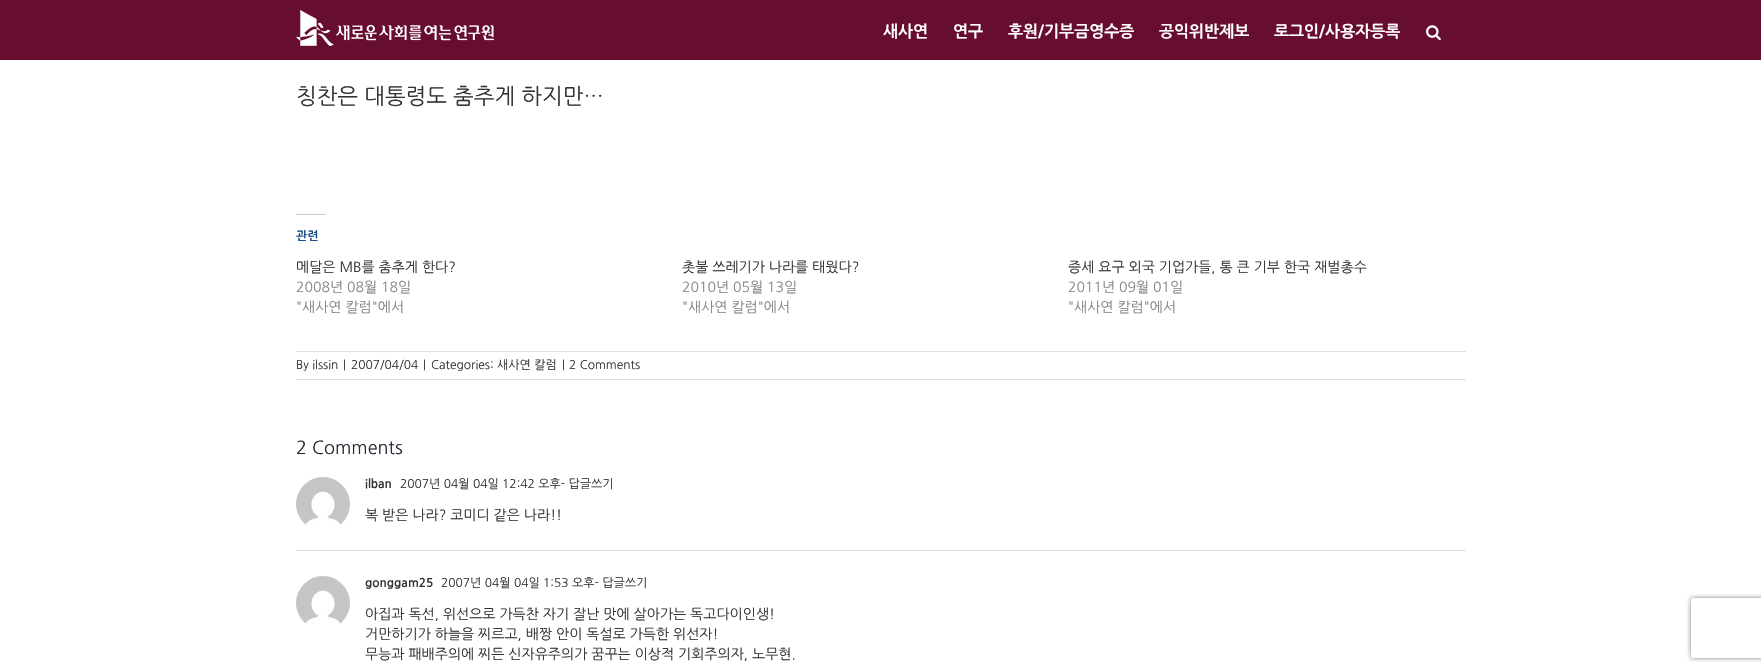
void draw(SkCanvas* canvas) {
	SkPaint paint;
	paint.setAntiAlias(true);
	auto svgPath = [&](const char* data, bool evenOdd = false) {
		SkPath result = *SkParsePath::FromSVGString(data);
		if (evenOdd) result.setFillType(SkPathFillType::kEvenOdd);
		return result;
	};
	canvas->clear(0xffffffff);
	paint.setColor(0xff670e30);
	canvas->drawRect(SkRect::MakeXYWH(0, 0, 1761, 60), paint);
	canvas->drawImageRect(SkImages::DeferredFromEncodedData(SkData::MakeFromFileName("img1.png")), SkRect::MakeXYWH(296, 10, 198, 36), SkSamplingOptions());
	SkFont f1(fontMgr->matchFamilyStyle("NanumGothic", SkFontStyle::Bold()), 16);
	f1.setSubpixel(true);
	paint.setColor(0xffffffff);
	canvas->drawString("새사연", 883, 37, f1, paint);
	canvas->drawString("연구", 953, 37, f1, paint);
	canvas->drawString("후원/기부금영수증", 1008, 37, f1, paint);
	canvas->drawString("공익위반제보", 1159, 37, f1, paint);
	canvas->drawString("로그인/사용자등록", 1274, 37, f1, paint);
	canvas->drawImageRect(SkImages::DeferredFromEncodedData(SkData::MakeFromFileName("img2.png")), SkRect::MakeXYWH(1426, 25, 15, 16), SkSamplingOptions());
	SkFont f2(fontMgr->matchFamilyStyle("NanumGothic", SkFontStyle::Normal()), 22);
	f2.setSubpixel(true);
	paint.setColor(0xff333333);
	canvas->drawString("칭찬은 대통령도 춤추게 하지만…", 296, 104, f2, paint);
	paint.setColor(0xffcccccc);
	canvas->drawRect(SkRect::MakeXYWH(296, 214, 30, 1), paint);
	SkFont f3(fontMgr->matchFamilyStyle("NanumGothic", SkFontStyle::Bold()), 12);
	f3.setSubpixel(true);
	paint.setColor(0xff1d4e89);
	canvas->drawString("관련", 296, 240, f3, paint);
	SkFont f4(fontMgr->matchFamilyStyle("NanumGothic", SkFontStyle::Normal()), 14);
	f4.setSubpixel(true);
	paint.setColor(0xff333333);
	canvas->drawString("메달은 MB를 춤추게 한다?", 296, 272, f4, paint);
	paint.setColor(0xff858585);
	canvas->drawString("2008년 08월 18일", 296, 292, f4, paint);
	canvas->drawString("\"새사연 칼럼\"에서", 296, 312, f4, paint);
	paint.setColor(0xff333333);
	canvas->drawString("촛불 쓰레기가 나라를 태웠다?", 682, 272, f4, paint);
	paint.setColor(0xff858585);
	canvas->drawString("2010년 05월 13일", 682, 292, f4, paint);
	canvas->drawString("\"새사연 칼럼\"에서", 682, 312, f4, paint);
	paint.setColor(0xff333333);
	canvas->drawString("증세 요구 외국 기업가들, 통 큰 기부 한국 재벌총수", 1068, 272, f4, paint);
	paint.setColor(0xff858585);
	canvas->drawString("2011년 09월 01일", 1068, 292, f4, paint);
	canvas->drawString("\"새사연 칼럼\"에서", 1068, 312, f4, paint);
	paint.setColor(0xffe0dede);
	canvas->drawRect(SkRect::MakeXYWH(296, 351, 1170, 1), paint);
	canvas->drawRect(SkRect::MakeXYWH(296, 379, 1170, 1), paint);
	SkFont f5(fontMgr->matchFamilyStyle("NanumGothic", SkFontStyle::Normal()), 12);
	f5.setSubpixel(true);
	paint.setColor(0xff333333);
	canvas->drawString("By ilssin", 296, 369, f5, paint);
	canvas->drawString("|", 343, 369, f5, paint);
	canvas->drawString("2007/04/04", 351, 369, f5, paint);
	canvas->drawString("|", 423, 369, f5, paint);
	canvas->drawString("Categories: 새사연 칼럼", 431, 369, f5, paint);
	canvas->drawString("|", 562, 369, f5, paint);
	canvas->drawString("2 Comments", 569, 369, f5, paint);
	SkFont f6(fontMgr->matchFamilyStyle("NanumGothic", SkFontStyle::Normal()), 18);
	f6.setSubpixel(true);
	paint.setColor(0xff212934);
	canvas->drawString("2 Comments", 296, 454, f6, paint);
	paint.setColor(0xffe0dede);
	canvas->drawRect(SkRect::MakeXYWH(296, 550, 1170, 1), paint);
	canvas->drawImageRect(SkImages::DeferredFromEncodedData(SkData::MakeFromFileName("img3.png")), SkRect::MakeXYWH(296, 477, 54, 48), SkSamplingOptions());
	paint.setColor(0xff333333);
	canvas->drawString("ilban", 365, 488, f3, paint);
	canvas->drawString("2007년 04월 04일 12:42 오후- 답글쓰기", 400, 488, f5, paint);
	canvas->drawString("복 받은 나라? 코미디 같은 나라!!", 365, 520, f4, paint);
	canvas->drawImageRect(SkImages::DeferredFromEncodedData(SkData::MakeFromFileName("img4.png")), SkRect::MakeXYWH(296, 576, 54, 48), SkSamplingOptions());
	canvas->drawString("gonggam25", 365, 587, f3, paint);
	canvas->drawString("2007년 04월 04일 1:53 오후- 답글쓰기", 441, 587, f5, paint);
	canvas->drawString("아집과 독선, 위선으로 가득찬 자기 잘난 맛에 살아가는 독고다이인생!", 365, 619, f4, paint);
	canvas->drawString("거만하기가 하늘을 찌르고, 배짱 안이 독설로 가득한 위선자!", 365, 639, f4, paint);
	canvas->drawString("무능과 패배주의에 찌든 신자유주의가 꿈꾸는 이상적 기회주의자, 노무현.", 365, 659, f4, paint);
	canvas->save();
	canvas->clipPath(svgPath("M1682 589H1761V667H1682ZM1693 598H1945C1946 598 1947 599 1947 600V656C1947 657 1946 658 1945 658H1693C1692 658 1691 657 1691 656V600C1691 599 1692 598 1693 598Z", true), true);
	paint.setColor(0xff808080);
	paint.setMaskFilter(SkMaskFilter::MakeBlur(kNormal_SkBlurStyle, 2.5));
	canvas->drawRoundRect(SkRect::MakeXYWH(1691, 598, 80, 60), 2, 2, paint);
	paint.setMaskFilter(nullptr);
	canvas->restore();
}
